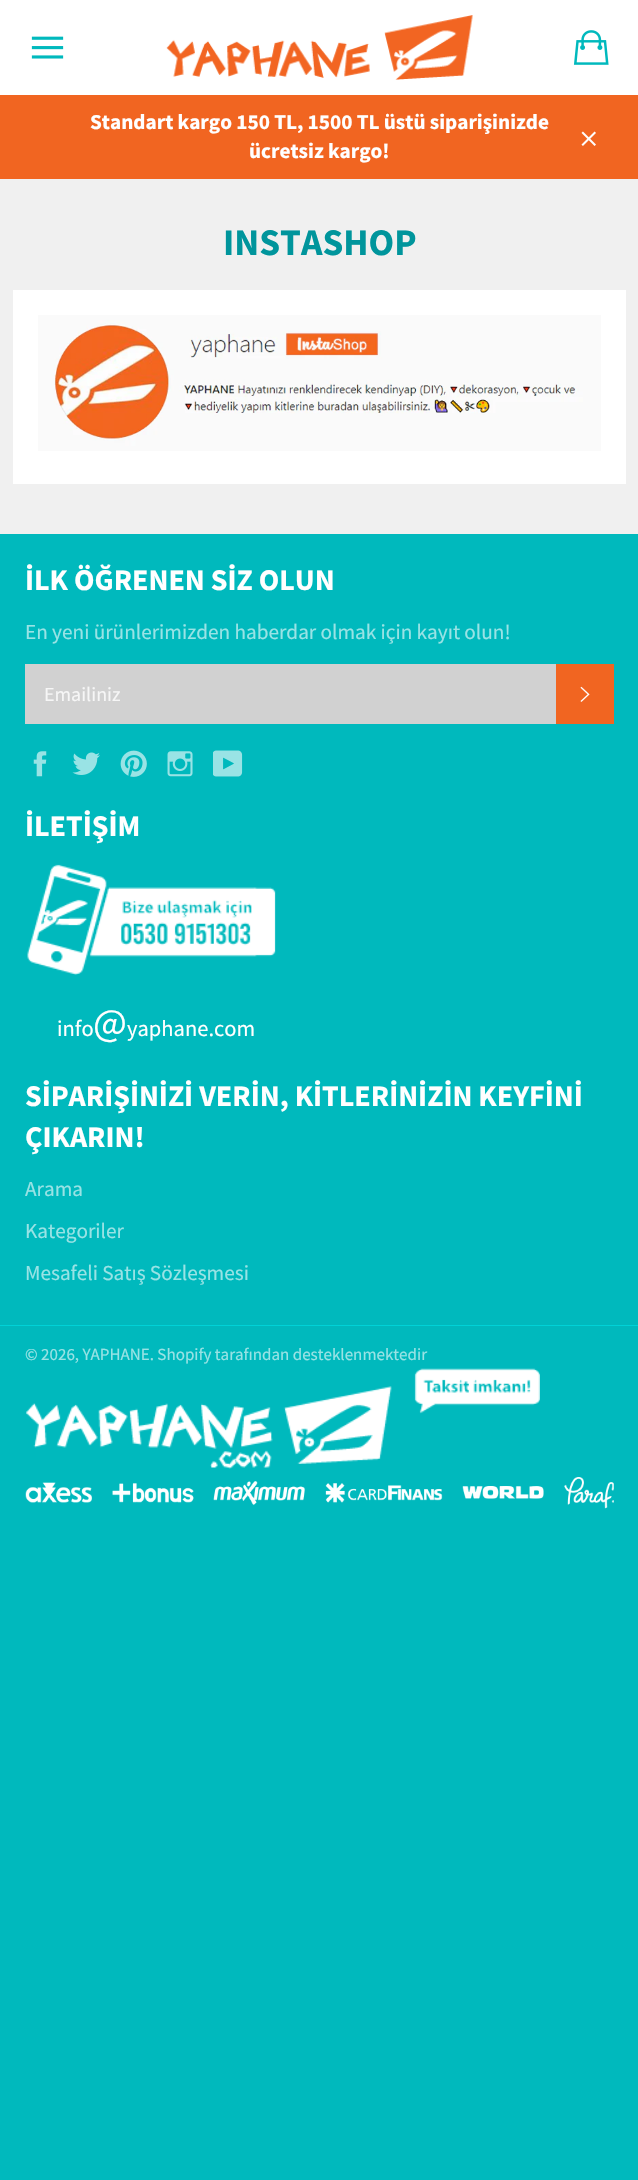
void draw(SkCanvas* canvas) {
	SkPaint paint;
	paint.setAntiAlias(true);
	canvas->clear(0xff00b9bd);
	paint.setColor(0xfff0f0f0);
	canvas->drawRect(SkRect::MakeXYWH(0, 179, 638, 355), paint);
	paint.setColor(0xffffffff);
	canvas->drawRect(SkRect::MakeXYWH(0, 0, 638, 95), paint);
	canvas->drawImageRect(SkImages::DeferredFromEncodedData(SkData::MakeFromFileName("img1.png")), SkRect::MakeXYWH(31, 36, 33, 23), SkSamplingOptions());
	canvas->drawImageRect(SkImages::DeferredFromEncodedData(SkData::MakeFromFileName("img2.png")), SkRect::MakeXYWH(166, 15, 307, 65), SkSamplingOptions());
	canvas->drawImageRect(SkImages::DeferredFromEncodedData(SkData::MakeFromFileName("img3.png")), SkRect::MakeXYWH(573, 30, 36, 35), SkSamplingOptions());
	paint.setColor(0xfff16521);
	canvas->drawRect(SkRect::MakeXYWH(0, 95, 638, 84), paint);
	SkFont f1(fontMgr->matchFamilyStyle("Source Sans Pro", SkFontStyle::Bold()), 21.25);
	f1.setSubpixel(true);
	paint.setColor(0xffffffff);
	canvas->drawString("Standart kargo 150 TL, 1500 TL üstü siparişinizde", 90, 129, f1, paint);
	canvas->drawString("ücretsiz kargo!", 249, 158, f1, paint);
	canvas->drawImageRect(SkImages::DeferredFromEncodedData(SkData::MakeFromFileName("img4.png")), SkRect::MakeXYWH(581, 131, 15, 15), SkSamplingOptions());
	SkFont f2(fontMgr->matchFamilyStyle("Source Sans Pro", SkFontStyle::Bold()), 37.5);
	f2.setSubpixel(true);
	paint.setColor(0xff00959c);
	canvas->drawString("INSTASHOP", 223, 255, f2, paint);
	paint.setColor(0xffffffff);
	canvas->drawRect(SkRect::MakeXYWH(13, 290, 613, 194), paint);
	canvas->drawImageRect(SkImages::DeferredFromEncodedData(SkData::MakeFromFileName("img5.png")), SkRect::MakeXYWH(38, 315, 563, 136), SkSamplingOptions());
	SkFont f3(fontMgr->matchFamilyStyle("Source Sans Pro", SkFontStyle::Bold()), 30);
	f3.setSubpixel(true);
	canvas->drawString("İLK ÖĞRENEN SİZ OLUN", 25, 590, f3, paint);
	SkFont f4(fontMgr->matchFamilyStyle("Source Sans Pro", SkFontStyle::Normal()), 21.25);
	f4.setSubpixel(true);
	paint.setColor(0xff99e3e5);
	canvas->drawString("En yeni ürünlerimizden haberdar olmak için kayıt olun!", 25, 639, f4, paint);
	paint.setColor(0xffd1d1d1);
	canvas->drawRect(SkRect::MakeXYWH(25, 664, 531, 60), paint);
	SkFont f5(fontMgr->matchFamilyStyle("Source Sans Pro", SkFontStyle::Normal()), 20);
	f5.setSubpixel(true);
	paint.setColor(0xfff6f6f6);
	canvas->drawString("Emailiniz", 44, 701, f5, paint);
	paint.setColor(0xfff16521);
	canvas->drawRect(SkRect::MakeXYWH(556, 664, 58, 60), paint);
	canvas->drawImageRect(SkImages::DeferredFromEncodedData(SkData::MakeFromFileName("img6.png")), SkRect::MakeXYWH(580, 686, 10, 16), SkSamplingOptions());
	canvas->drawImageRect(SkImages::DeferredFromEncodedData(SkData::MakeFromFileName("img7.png")), SkRect::MakeXYWH(33, 751, 14, 26), SkSamplingOptions());
	canvas->drawImageRect(SkImages::DeferredFromEncodedData(SkData::MakeFromFileName("img8.png")), SkRect::MakeXYWH(72, 752, 28, 23), SkSamplingOptions());
	canvas->drawImageRect(SkImages::DeferredFromEncodedData(SkData::MakeFromFileName("img9.png")), SkRect::MakeXYWH(120, 750, 27, 27), SkSamplingOptions());
	canvas->drawImageRect(SkImages::DeferredFromEncodedData(SkData::MakeFromFileName("img10.png")), SkRect::MakeXYWH(167, 751, 26, 26), SkSamplingOptions());
	canvas->drawImageRect(SkImages::DeferredFromEncodedData(SkData::MakeFromFileName("img11.png")), SkRect::MakeXYWH(213, 750, 30, 27), SkSamplingOptions());
	paint.setColor(0xffffffff);
	canvas->drawString("İLETİŞİM", 25, 836, f3, paint);
	canvas->drawImageRect(SkImages::DeferredFromEncodedData(SkData::MakeFromFileName("img12.png")), SkRect::MakeXYWH(27, 864, 249, 111), SkSamplingOptions());
	SkFont f6(fontMgr->matchFamilyStyle("Source Sans Pro", SkFontStyle::Normal()), 22.5);
	f6.setSubpixel(true);
	canvas->drawString("info", 57, 1036, f6, paint);
	SkFont f7(fontMgr->matchFamilyStyle("Source Sans Pro", SkFontStyle::Normal()), 40);
	f7.setSubpixel(true);
	canvas->drawString("@", 93, 1036, f7, paint);
	canvas->drawString("yaphane.com", 127, 1036, f6, paint);
	canvas->drawString("SİPARİŞİNİZİ VERİN, KİTLERİNİZİN KEYFİNİ", 25, 1106, f3, paint);
	canvas->drawString("ÇIKARIN!", 25, 1147, f3, paint);
	paint.setColor(0xff99e3e5);
	canvas->drawString("Arama", 25, 1196, f4, paint);
	canvas->drawString("Kategoriler", 25, 1238, f4, paint);
	canvas->drawString("Mesafeli Satış Sözleşmesi", 25, 1280, f4, paint);
	paint.setColor(0xff00d2d7);
	canvas->drawRect(SkRect::MakeXYWH(0, 1325, 638, 1), paint);
	SkFont f8(fontMgr->matchFamilyStyle("Source Sans Pro", SkFontStyle::Normal()), 17);
	f8.setSubpixel(true);
	paint.setColor(0xff99e3e5);
	canvas->drawString("© 2026, YAPHANE. Shopify tarafından desteklenmektedir", 25, 1360, f8, paint);
	canvas->drawImageRect(SkImages::DeferredFromEncodedData(SkData::MakeFromFileName("img13.png")), SkRect::MakeXYWH(26, 1368, 514, 101), SkSamplingOptions());
	canvas->drawImageRect(SkImages::DeferredFromEncodedData(SkData::MakeFromFileName("img14.png")), SkRect::MakeXYWH(25, 1477, 589, 32), SkSamplingOptions());
}
